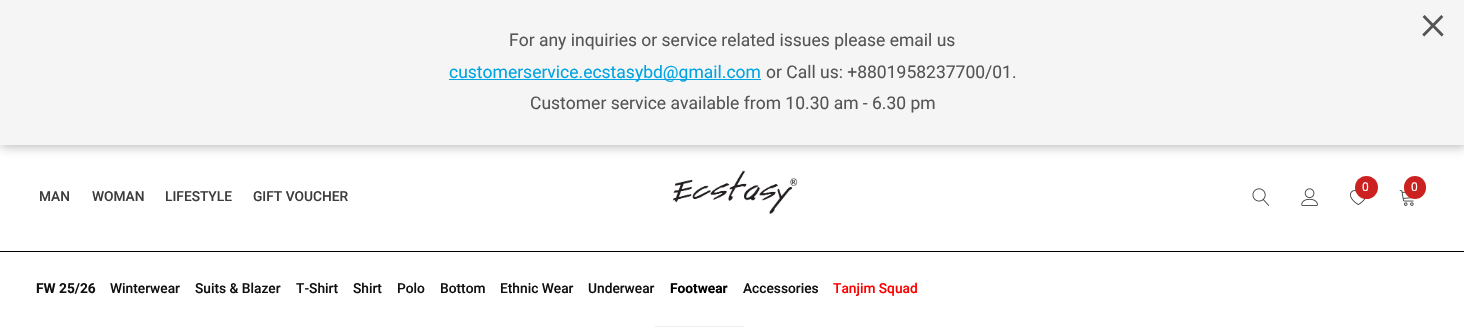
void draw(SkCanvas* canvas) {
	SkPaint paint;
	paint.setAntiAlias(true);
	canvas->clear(0xffffffff);
	paint.setColor(0xff000000);
	canvas->drawRect(SkRect::MakeXYWH(0, 251, 1464, 1), paint);
	paint.setColor(0x6e4a4748);
	paint.setMaskFilter(SkMaskFilter::MakeBlur(kNormal_SkBlurStyle, 5.5));
	canvas->drawRect(SkRect::MakeXYWH(1, 1, 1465, 145), paint);
	paint.setMaskFilter(nullptr);
	paint.setColor(0xfff5f5f5);
	canvas->drawRect(SkRect::MakeXYWH(0, 0, 1464, 145), paint);
	SkFont f1(fontMgr->matchFamilyStyle("Roboto", SkFontStyle(300, SkFontStyle::kNormal_Width, SkFontStyle::kUpright_Slant)), 50);
	f1.setSubpixel(true);
	paint.setColor(0xff555555);
	canvas->drawString("×", 1420, 39, f1, paint);
	SkFont f2(fontMgr->matchFamilyStyle("Roboto", SkFontStyle::Normal()), 17.5);
	f2.setSubpixel(true);
	canvas->drawString("For any inquiries or service related issues please email us", 509, 46, f2, paint);
	paint.setColor(0xff00a4e2);
	canvas->drawRect(SkRect::MakeXYWH(449, 79, 312, 1), paint);
	canvas->drawString("customerservice.ecstasybd@gmail.com", 449, 78, f2, paint);
	paint.setColor(0xff555555);
	canvas->drawString("or Call us: +8801958237700/01.", 766, 78, f2, paint);
	canvas->drawString("Customer service available from 10.30 am - 6.30 pm", 530, 109, f2, paint);
	canvas->drawImageRect(SkImages::DeferredFromEncodedData(SkData::MakeFromFileName("img1.png")), SkRect::MakeXYWH(672, 170, 126, 44), SkSamplingOptions());
	canvas->drawImageRect(SkImages::DeferredFromEncodedData(SkData::MakeFromFileName("img2.png")), SkRect::MakeXYWH(1350, 190, 16, 15), SkSamplingOptions());
	paint.setColor(0xffcc2121);
	canvas->drawCircle(1366.5, 187.5, 11.5, paint);
	SkFont f3(fontMgr->matchFamilyStyle("Roboto", SkFontStyle::Normal()), 12);
	f3.setSubpixel(true);
	paint.setColor(0xffffffff);
	canvas->drawString("0", 1362, 191, f3, paint);
	canvas->drawImageRect(SkImages::DeferredFromEncodedData(SkData::MakeFromFileName("img3.png")), SkRect::MakeXYWH(1399, 190, 15, 16), SkSamplingOptions());
	paint.setColor(0xffcc2121);
	canvas->drawRoundRect(SkRect::MakeXYWH(1404, 176, 22, 23), 11, 11, paint);
	paint.setColor(0xffffffff);
	canvas->drawString("0", 1411, 191, f3, paint);
	canvas->drawImageRect(SkImages::DeferredFromEncodedData(SkData::MakeFromFileName("img4.png")), SkRect::MakeXYWH(1252, 188, 18, 18), SkSamplingOptions());
	canvas->drawImageRect(SkImages::DeferredFromEncodedData(SkData::MakeFromFileName("img5.png")), SkRect::MakeXYWH(1301, 188, 17, 18), SkSamplingOptions());
	SkFont f4(fontMgr->matchFamilyStyle("Roboto", SkFontStyle(500, SkFontStyle::kNormal_Width, SkFontStyle::kUpright_Slant)), 13.75);
	f4.setSubpixel(true);
	paint.setColor(0xff3c3c3c);
	canvas->drawString("MAN", 39, 201, f4, paint);
	canvas->drawString("WOMAN", 92, 201, f4, paint);
	canvas->drawString("LIFESTYLE", 165, 201, f4, paint);
	canvas->drawString("GIFT VOUCHER", 253, 201, f4, paint);
	SkFont f5(fontMgr->matchFamilyStyle("Roboto", SkFontStyle::Bold()), 13.75);
	f5.setSubpixel(true);
	paint.setColor(0xff111111);
	canvas->drawString("FW 25/26", 36, 293, f5, paint);
	canvas->drawString("Winterwear", 110, 293, f4, paint);
	canvas->drawString("Suits & Blazer", 195, 293, f4, paint);
	canvas->drawString("T-Shirt", 296, 293, f4, paint);
	canvas->drawString("Shirt", 353, 293, f4, paint);
	canvas->drawString("Polo", 397, 293, f4, paint);
	canvas->drawString("Bottom", 440, 293, f4, paint);
	canvas->drawString("Ethnic Wear", 500, 293, f4, paint);
	canvas->drawString("Underwear", 588, 293, f4, paint);
	paint.setColor(0xffeeeeee);
	canvas->drawRect(SkRect::MakeXYWH(655, 326, 89, 1), paint);
	paint.setColor(0xff000000);
	canvas->drawString("Footwear", 670, 293, f5, paint);
	paint.setColor(0xff111111);
	canvas->drawString("Accessories", 743, 293, f4, paint);
	paint.setColor(0xffff0000);
	canvas->drawString("Tanjim Squad", 833, 293, f4, paint);
}
